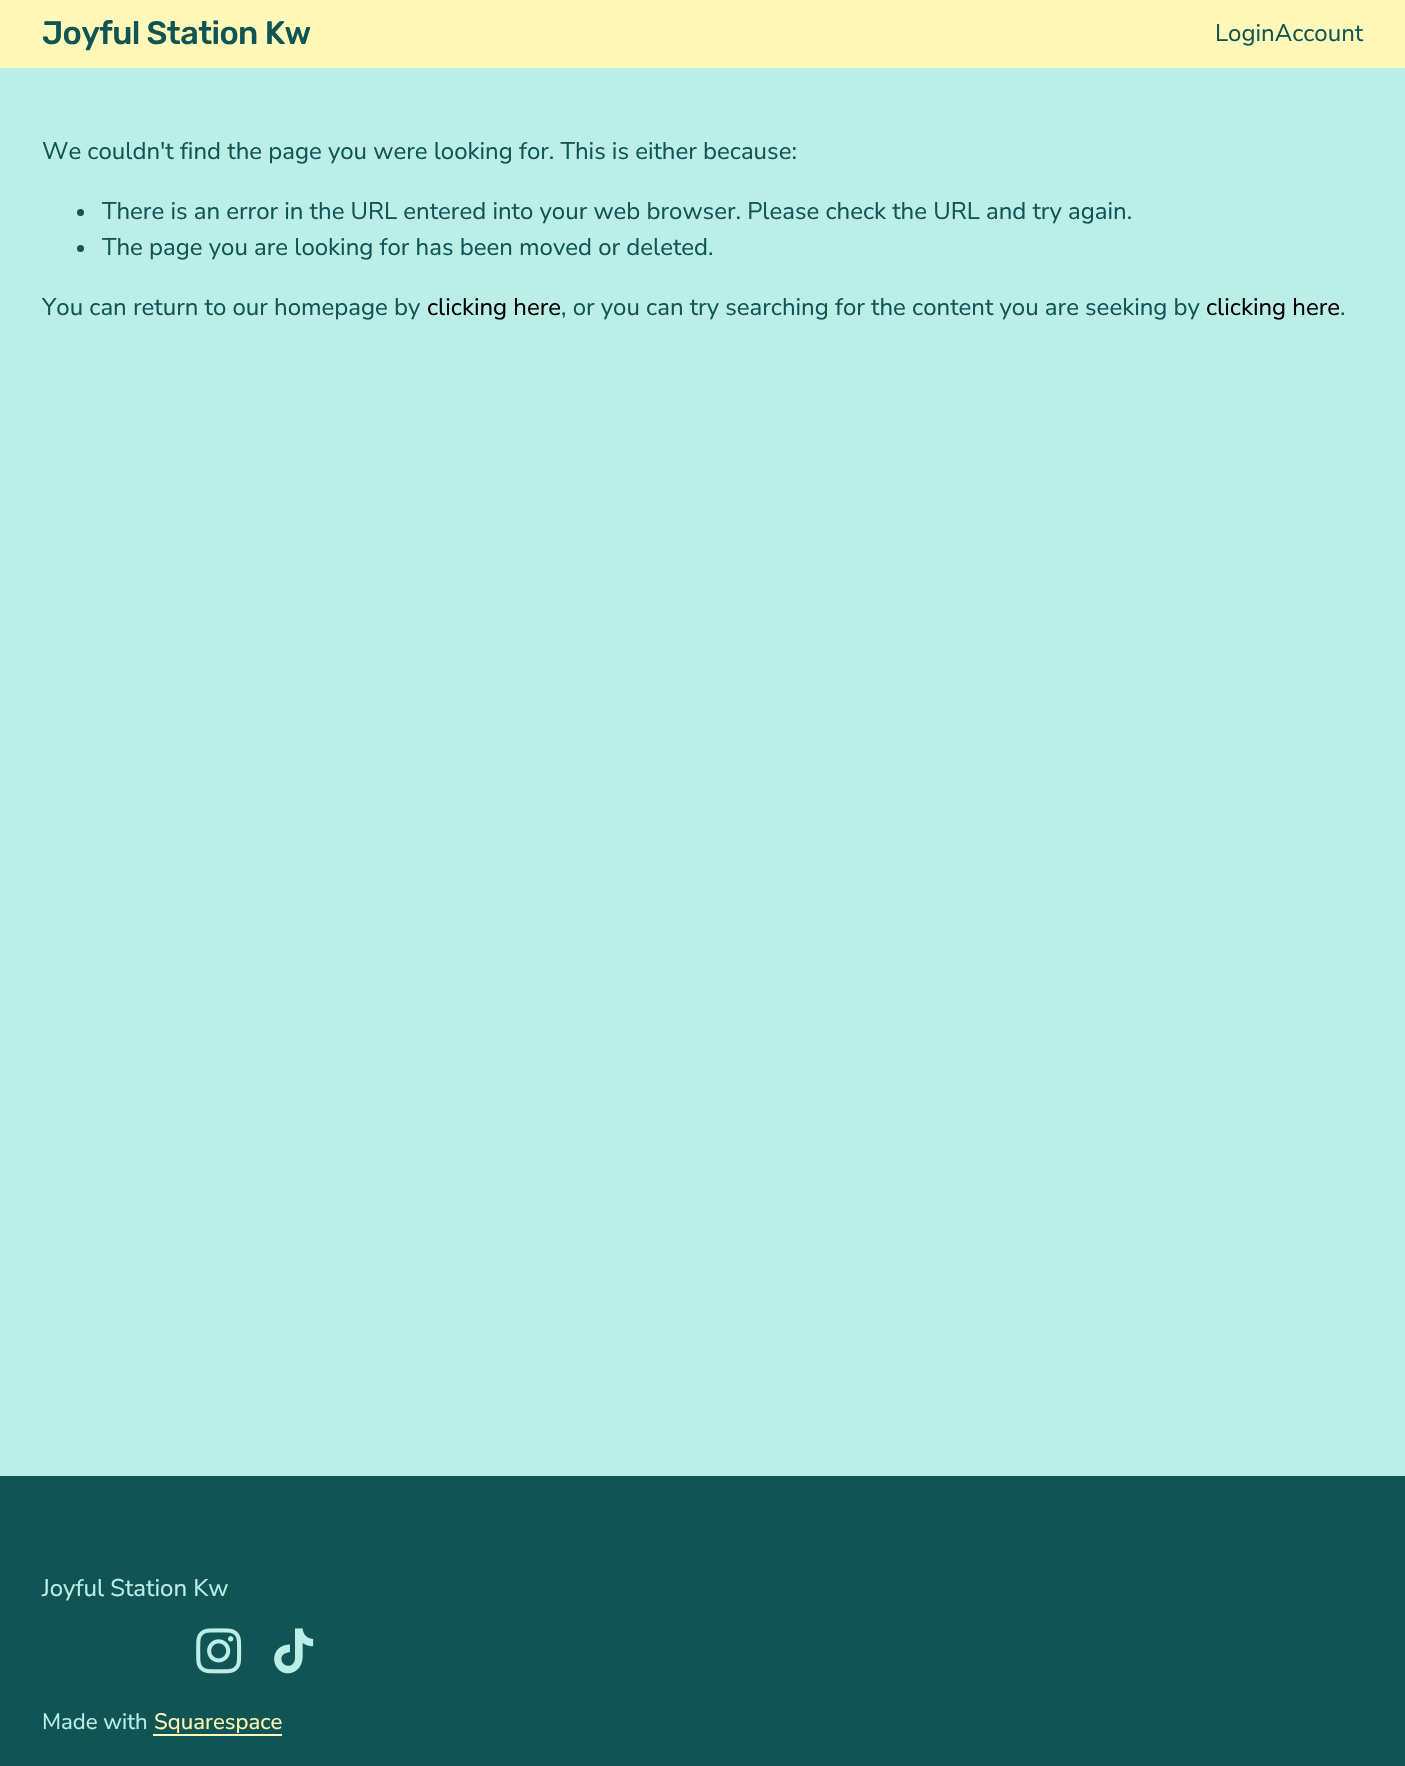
void draw(SkCanvas* canvas) {
	SkPaint paint;
	paint.setAntiAlias(true);
	auto spacedText = [&](const char* s, float x, float y, const SkFont& font, const SkPaint& ink, float letter, float word) {
		std::vector<SkGlyphID> glyphs(font.countText(s, strlen(s), SkTextEncoding::kUTF8));
		std::vector<float> xs(glyphs.size());
		font.textToGlyphs(s, strlen(s), SkTextEncoding::kUTF8, glyphs);
		font.getXPos(glyphs, xs, x);
		float extra = 0;
		for (size_t i = 0; i < glyphs.size(); i++) {
			xs[i] += extra;
			extra += letter + word * (glyphs[i] == font.unicharToGlyph(' '));
		}
		canvas->drawTextBlob(SkTextBlob::MakeFromPosHGlyphs(glyphs, xs, y, font), 0, 0, ink);
	};
	canvas->clear(0xffbceee8);
	paint.setColor(0xfffff8b8);
	canvas->drawRect(SkRect::MakeXYWH(0, 0, 1405, 68), paint);
	SkFont f1(fontMgr->matchFamilyStyle("Rubik", SkFontStyle(500, SkFontStyle::kNormal_Width, SkFontStyle::kUpright_Slant)), 32.5);
	f1.setSubpixel(true);
	paint.setColor(0xff105553);
	spacedText("Joyful Station Kw", 42, 44, f1, paint, -0.6, 0);
	SkFont f2(fontMgr->matchFamilyStyle("Nunito Sans", SkFontStyle::Normal()), 24);
	f2.setSubpixel(true);
	canvas->drawString("LoginAccount", 1215, 41, f2, paint);
	canvas->drawString("We couldn't find the page you were looking for. This is either because:", 42, 159, f2, paint);
	canvas->drawCircle(80.5, 212.5, 3.5, paint);
	canvas->drawString("There is an error in the URL entered into your web browser. Please check the URL and try again.", 102, 219, f2, paint);
	canvas->drawCircle(80.5, 248.5, 3.5, paint);
	canvas->drawString("The page you are looking for has been moved or deleted.", 102, 255, f2, paint);
	canvas->drawString("You can return to our homepage by", 42, 315, f2, paint);
	paint.setColor(0xff000000);
	canvas->drawString("clicking here", 427, 315, f2, paint);
	paint.setColor(0xff105553);
	canvas->drawString(", or you can try searching for the content you are seeking by", 561, 315, f2, paint);
	paint.setColor(0xff000000);
	canvas->drawString("clicking here", 1206, 315, f2, paint);
	paint.setColor(0xff105553);
	canvas->drawString(".", 1340, 315, f2, paint);
	canvas->drawRect(SkRect::MakeXYWH(0, 1476, 1405, 290), paint);
	paint.setColor(0xffbceee8);
	canvas->drawString("Joyful Station Kw", 42, 1596, f2, paint);
	canvas->drawImageRect(SkImages::DeferredFromEncodedData(SkData::MakeFromFileName("img1.png")), SkRect::MakeXYWH(196, 1628, 46, 46), SkSamplingOptions());
	canvas->drawImageRect(SkImages::DeferredFromEncodedData(SkData::MakeFromFileName("img2.png")), SkRect::MakeXYWH(274, 1628, 40, 46), SkSamplingOptions());
	SkFont f3(fontMgr->matchFamilyStyle("Nunito Sans", SkFontStyle::Normal()), 22.25);
	f3.setSubpixel(true);
	canvas->drawString("Made with", 42, 1729, f3, paint);
	paint.setColor(0xfffff8b8);
	canvas->drawString("Squarespace", 154, 1729, f3, paint);
	canvas->drawRect(SkRect::MakeXYWH(153, 1734, 129, 2), paint);
}
